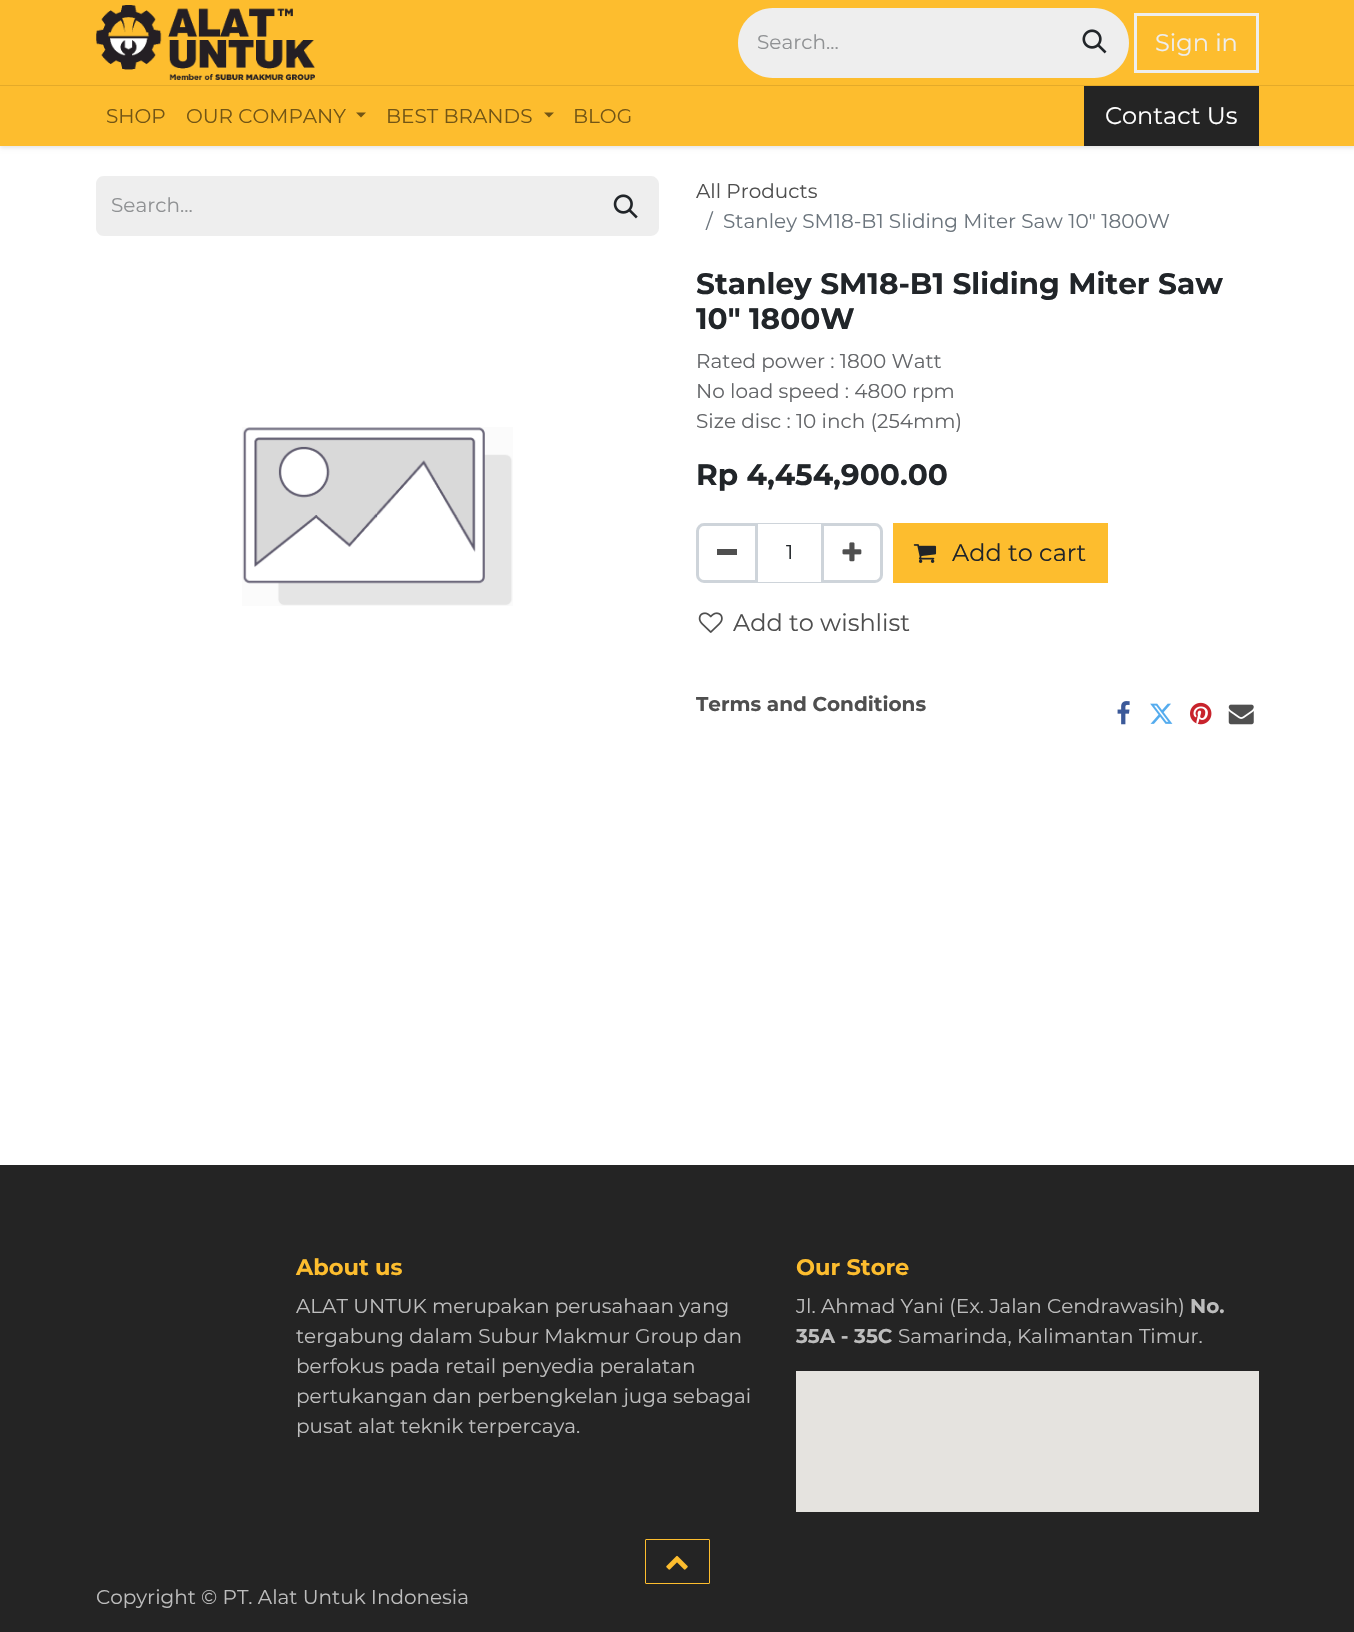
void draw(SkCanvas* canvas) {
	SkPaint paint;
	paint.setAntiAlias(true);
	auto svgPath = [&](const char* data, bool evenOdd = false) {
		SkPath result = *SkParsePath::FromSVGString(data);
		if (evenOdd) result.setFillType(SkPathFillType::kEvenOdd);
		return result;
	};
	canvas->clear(0xffffffff);
	paint.setColor(0x1a000000);
	paint.setMaskFilter(SkMaskFilter::MakeBlur(kNormal_SkBlurStyle, 2));
	canvas->drawRect(SkRect::MakeXYWH(0, 1, 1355, 147), paint);
	paint.setMaskFilter(nullptr);
	paint.setColor(0xfffdbd2e);
	canvas->drawRect(SkRect::MakeXYWH(0, 0, 1354, 146), paint);
	canvas->drawImageRect(SkImages::DeferredFromEncodedData(SkData::MakeFromFileName("img1.png")), SkRect::MakeXYWH(96, 5, 219, 75), SkSamplingOptions());
	paint.setColor(0xffeeeeee);
	canvas->drawPath(svgPath("M773 8H1061V78H773C753.5 78 738 62.5 738 43C738 23.5 753.5 8 773 8Z"), paint);
	SkFont f1(fontMgr->matchFamilyStyle("Montserrat", SkFontStyle::Normal()), 20);
	f1.setSubpixel(true);
	paint.setColor(0xff909294);
	canvas->drawString("Search...", 757, 49, f1, paint);
	paint.setColor(0xffeeeeee);
	canvas->drawPath(svgPath("M1060 8H1094C1113.5 8 1129 23.5 1129 43C1129 62.5 1113.5 78 1094 78H1060Z"), paint);
	canvas->drawImageRect(SkImages::DeferredFromEncodedData(SkData::MakeFromFileName("img2.png")), SkRect::MakeXYWH(1082, 29, 25, 25), SkSamplingOptions());
	paint.setStroke(true);
	paint.setStrokeWidth(3);
	canvas->drawRect(SkRect::MakeXYWH(1135.5, 14.5, 122, 57), paint);
	SkFont f2(fontMgr->matchFamilyStyle("Montserrat", SkFontStyle::Normal()), 24);
	f2.setSubpixel(true);
	paint.setStroke(false);
	canvas->drawString("Sign in", 1155, 51, f2, paint);
	paint.setColor(0xffe4aa29);
	canvas->drawRect(SkRect::MakeXYWH(0, 85, 1354, 1), paint);
	paint.setColor(0xff725515);
	canvas->drawString("SHOP", 106, 123, f1, paint);
	canvas->drawString("OUR COMPANY", 186, 123, f1, paint);
	canvas->drawPath(svgPath("M356 112.5H366L361 117.5Z"), paint);
	canvas->drawString("BEST BRANDS", 386, 123, f1, paint);
	canvas->drawPath(svgPath("M544 112.5H554L549 117.5Z"), paint);
	canvas->drawString("BLOG", 573, 123, f1, paint);
	paint.setColor(0xff242424);
	canvas->drawRect(SkRect::MakeXYWH(1084, 86, 175, 60), paint);
	paint.setColor(0xffffffff);
	canvas->drawString("Contact Us", 1105, 124, f2, paint);
	paint.setColor(0xffeeeeee);
	canvas->drawPath(svgPath("M104 176H594V236H104C99.5 236 96 232.5 96 228V184C96 179.5 99.5 176 104 176Z"), paint);
	paint.setColor(0xff909294);
	canvas->drawString("Search...", 111, 212, f1, paint);
	paint.setColor(0xffeeeeee);
	canvas->drawPath(svgPath("M594.5 177.5H651C654.5 177.5 657.5 180.5 657.5 184V228C657.5 231.5 654.5 234.5 651 234.5H594.5Z"), paint);
	paint.setStroke(true);
	canvas->drawPath(svgPath("M594.5 177.5H651C654.5 177.5 657.5 180.5 657.5 184V228C657.5 231.5 654.5 234.5 651 234.5H594.5Z"), paint);
	canvas->drawImageRect(SkImages::DeferredFromEncodedData(SkData::MakeFromFileName("img3.png")), SkRect::MakeXYWH(613, 194, 25, 25), SkSamplingOptions());
	paint.setStroke(false);
	paint.setColor(0xff4f4f4f);
	canvas->drawString("All Products", 696, 198, f1, paint);
	paint.setColor(0xff6c757d);
	canvas->drawString("/", 706, 228, f1, paint);
	canvas->drawString("Stanley SM18-B1 Sliding Miter Saw 10\" 1800W", 723, 228, f1, paint);
	canvas->drawImageRect(SkImages::DeferredFromEncodedData(SkData::MakeFromFileName("img4.png")), SkRect::MakeXYWH(242, 427, 271, 179), SkSamplingOptions());
	SkFont f3(fontMgr->matchFamilyStyle("Montserrat", SkFontStyle::Bold()), 29.6);
	f3.setSubpixel(true);
	paint.setColor(0xff212529);
	canvas->drawString("Stanley SM18-B1 Sliding Miter Saw", 696, 294, f3, paint);
	canvas->drawString("10\" 1800W", 696, 329, f3, paint);
	paint.setColor(0xff646669);
	canvas->drawString("Rated power : 1800 Watt", 696, 368, f1, paint);
	canvas->drawString("No load speed : 4800 rpm", 696, 398, f1, paint);
	canvas->drawString("Size disc : 10 inch (254mm)", 696, 428, f1, paint);
	paint.setColor(0xff212529);
	canvas->drawString("Rp 4,454,900.00", 696, 485, f3, paint);
	paint.setStroke(true);
	paint.setStrokeWidth(1);
	paint.setColor(0xffced4da);
	canvas->drawRect(SkRect::MakeXYWH(756.5, 523.5, 66, 59), paint);
	paint.setStrokeWidth(3);
	canvas->drawPath(svgPath("M704 524.5H756.5V581.5H704C700.5 581.5 697.5 578.5 697.5 575V531C697.5 527.5 700.5 524.5 704 524.5Z"), paint);
	paint.setStroke(false);
	paint.setColor(0xff4f4f4f);
	canvas->drawRect(SkRect::MakeXYWH(717, 549, 20, 6), paint);
	paint.setColor(0xff212529);
	canvas->drawString("1", 786, 559, f1, paint);
	paint.setStroke(true);
	paint.setColor(0xffced4da);
	canvas->drawPath(svgPath("M822.5 524.5H875C878.5 524.5 881.5 527.5 881.5 531V575C881.5 578.5 878.5 581.5 875 581.5H822.5Z"), paint);
	canvas->drawImageRect(SkImages::DeferredFromEncodedData(SkData::MakeFromFileName("img5.png")), SkRect::MakeXYWH(842, 542, 20, 20), SkSamplingOptions());
	paint.setStroke(false);
	paint.setColor(0xfffdbd2e);
	canvas->drawRect(SkRect::MakeXYWH(894.5, 524.5, 212, 57), paint);
	paint.setStroke(true);
	canvas->drawRect(SkRect::MakeXYWH(894.5, 524.5, 212, 57), paint);
	canvas->drawImageRect(SkImages::DeferredFromEncodedData(SkData::MakeFromFileName("img6.png")), SkRect::MakeXYWH(913, 544, 24, 19), SkSamplingOptions());
	paint.setStroke(false);
	paint.setColor(0xff212529);
	canvas->drawString("Add to cart", 952, 561, f2, paint);
	canvas->drawImageRect(SkImages::DeferredFromEncodedData(SkData::MakeFromFileName("img7.png")), SkRect::MakeXYWH(698, 612, 25, 21), SkSamplingOptions());
	paint.setColor(0xff4f4f4f);
	canvas->drawString("Add to wishlist", 733, 631, f2, paint);
	SkFont f4(fontMgr->matchFamilyStyle("Montserrat", SkFontStyle::Bold()), 20);
	f4.setSubpixel(true);
	canvas->drawString("Terms and Conditions", 696, 711, f4, paint);
	canvas->drawImageRect(SkImages::DeferredFromEncodedData(SkData::MakeFromFileName("img8.png")), SkRect::MakeXYWH(1117, 701, 13, 24), SkSamplingOptions());
	canvas->drawImageRect(SkImages::DeferredFromEncodedData(SkData::MakeFromFileName("img9.png")), SkRect::MakeXYWH(1150, 703, 23, 21), SkSamplingOptions());
	canvas->drawImageRect(SkImages::DeferredFromEncodedData(SkData::MakeFromFileName("img10.png")), SkRect::MakeXYWH(1190, 702, 22, 23), SkSamplingOptions());
	canvas->drawImageRect(SkImages::DeferredFromEncodedData(SkData::MakeFromFileName("img11.png")), SkRect::MakeXYWH(1228, 704, 26, 21), SkSamplingOptions());
	paint.setColor(0xff242424);
	canvas->drawRect(SkRect::MakeXYWH(0, 1165, 1354, 467), paint);
	SkFont f5(fontMgr->matchFamilyStyle("Montserrat", SkFontStyle::Bold()), 22.5);
	f5.setSubpixel(true);
	paint.setColor(0xfffdbd2e);
	canvas->drawString("About us", 296, 1275, f5, paint);
	paint.setColor(0xffbdbdbd);
	canvas->drawString("ALAT UNTUK merupakan perusahaan yang", 296, 1313, f1, paint);
	canvas->drawString("tergabung dalam Subur Makmur Group dan", 296, 1343, f1, paint);
	canvas->drawString("berfokus pada retail penyedia peralatan", 296, 1373, f1, paint);
	canvas->drawString("pertukangan dan perbengkelan juga sebagai", 296, 1403, f1, paint);
	canvas->drawString("pusat alat teknik terpercaya.", 296, 1433, f1, paint);
	paint.setColor(0xfffdbd2e);
	canvas->drawString("Our Store", 796, 1275, f5, paint);
	paint.setColor(0xffbdbdbd);
	canvas->drawString("Jl. Ahmad Yani (Ex. Jalan Cendrawasih)", 796, 1313, f1, paint);
	canvas->drawString("No.", 1190, 1313, f4, paint);
	canvas->drawString("35A - 35C", 796, 1343, f4, paint);
	canvas->drawString("Samarinda, Kalimantan Timur.", 898, 1343, f1, paint);
	paint.setColor(0xffe5e3df);
	canvas->drawRect(SkRect::MakeXYWH(796, 1371, 463, 141), paint);
	paint.setStroke(true);
	paint.setStrokeWidth(1);
	paint.setColor(0xfffdbd2e);
	canvas->drawRoundRect(SkRect::MakeXYWH(645.5, 1539.5, 64, 44), 0.5, 0.5, paint);
	canvas->drawImageRect(SkImages::DeferredFromEncodedData(SkData::MakeFromFileName("img12.png")), SkRect::MakeXYWH(666, 1555, 22, 15), SkSamplingOptions());
	paint.setStroke(false);
	paint.setColor(0xffbdbdbd);
	canvas->drawString("Copyright © PT. Alat Untuk Indonesia", 96, 1604, f1, paint);
}
